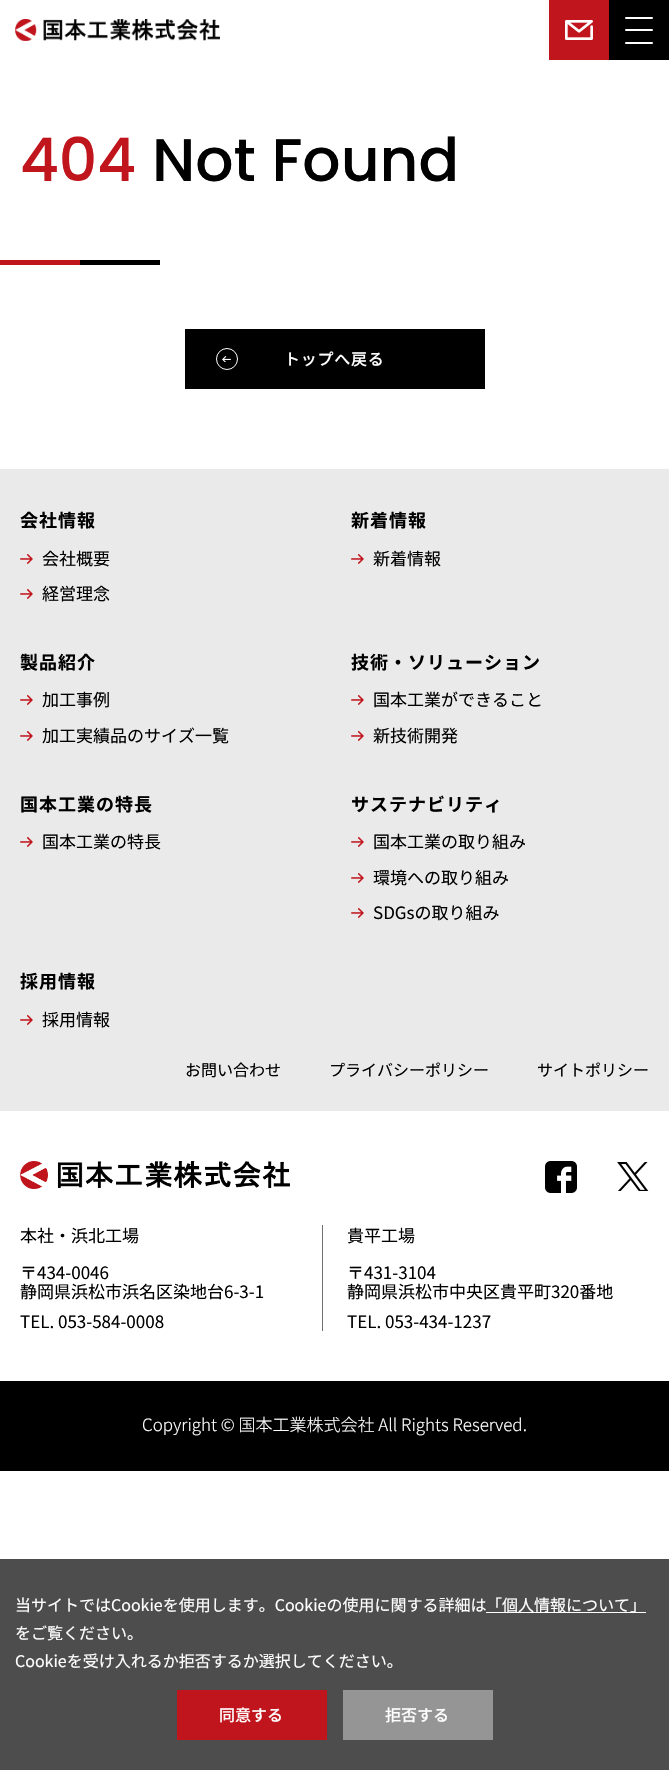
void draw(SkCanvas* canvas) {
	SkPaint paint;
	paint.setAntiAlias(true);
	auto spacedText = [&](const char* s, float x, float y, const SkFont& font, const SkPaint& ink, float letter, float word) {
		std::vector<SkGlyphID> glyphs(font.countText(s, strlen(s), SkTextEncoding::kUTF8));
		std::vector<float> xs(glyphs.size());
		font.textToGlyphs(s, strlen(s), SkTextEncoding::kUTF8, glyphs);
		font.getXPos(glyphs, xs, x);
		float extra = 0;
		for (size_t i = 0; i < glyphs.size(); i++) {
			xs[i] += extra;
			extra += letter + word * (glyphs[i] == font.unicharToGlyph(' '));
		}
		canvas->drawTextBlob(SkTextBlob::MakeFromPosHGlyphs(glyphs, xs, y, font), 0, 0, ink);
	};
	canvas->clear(0xffffffff);
	canvas->drawImageRect(SkImages::DeferredFromEncodedData(SkData::MakeFromFileName("img1.png")), SkRect::MakeXYWH(15, 19, 205, 22), SkSamplingOptions());
	paint.setColor(0xffc1151d);
	canvas->drawRect(SkRect::MakeXYWH(549, 0, 60, 60), paint);
	canvas->drawImageRect(SkImages::DeferredFromEncodedData(SkData::MakeFromFileName("img2.png")), SkRect::MakeXYWH(565, 20, 28, 20), SkSamplingOptions());
	paint.setColor(0xff000000);
	canvas->drawRect(SkRect::MakeXYWH(609, 0, 60, 60), paint);
	paint.setColor(0xffffffff);
	canvas->drawRoundRect(SkRect::MakeXYWH(625, 17, 28, 2), 1, 1, paint);
	canvas->drawRoundRect(SkRect::MakeXYWH(625, 29, 28, 2), 1, 1, paint);
	canvas->drawRoundRect(SkRect::MakeXYWH(625, 42, 28, 2), 1, 1, paint);
	SkFont f1(fontMgr->matchFamilyStyle("Poppins", SkFontStyle(500, SkFontStyle::kNormal_Width, SkFontStyle::kUpright_Slant)), 60);
	f1.setSubpixel(true);
	paint.setColor(0xffc1151d);
	canvas->drawString("404", 20, 181, f1, paint);
	paint.setColor(0xff000000);
	canvas->drawString("Not Found", 152, 181, f1, paint);
	paint.setColor(0xffc1151d);
	canvas->drawRect(SkRect::MakeXYWH(0, 260, 80, 5), paint);
	paint.setColor(0xff000000);
	canvas->drawRect(SkRect::MakeXYWH(80, 260, 80, 5), paint);
	canvas->drawRect(SkRect::MakeXYWH(185, 329, 300, 60), paint);
	canvas->drawImageRect(SkImages::DeferredFromEncodedData(SkData::MakeFromFileName("img3.png")), SkRect::MakeXYWH(222, 356, 9, 6), SkSamplingOptions());
	paint.setStroke(true);
	paint.setStrokeWidth(1);
	paint.setColor(0xffffffff);
	canvas->drawCircle(227, 359, 10.5, paint);
	SkFont f2(fontMgr->matchFamilyStyle("Noto Sans JP", SkFontStyle(500, SkFontStyle::kNormal_Width, SkFontStyle::kUpright_Slant)), 16);
	f2.setSubpixel(true);
	paint.setStroke(false);
	spacedText("トップへ戻る", 284, 365, f2, paint, 0.75, 0);
	paint.setColor(0xffebeaea);
	canvas->drawRect(SkRect::MakeXYWH(0, 469, 669, 642), paint);
	SkFont f3(fontMgr->matchFamilyStyle("Noto Sans JP", SkFontStyle::Bold()), 18);
	f3.setSubpixel(true);
	paint.setColor(0xff000000);
	spacedText("会社情報", 20, 527, f3, paint, 1, 0);
	canvas->drawImageRect(SkImages::DeferredFromEncodedData(SkData::MakeFromFileName("img4.png")), SkRect::MakeXYWH(20, 554, 13, 10), SkSamplingOptions());
	SkFont f4(fontMgr->matchFamilyStyle("Noto Sans JP", SkFontStyle::Normal()), 17);
	f4.setSubpixel(true);
	canvas->drawString("会社概要", 42, 565, f4, paint);
	canvas->drawImageRect(SkImages::DeferredFromEncodedData(SkData::MakeFromFileName("img4.png")), SkRect::MakeXYWH(20, 589, 13, 10), SkSamplingOptions());
	canvas->drawString("経営理念", 42, 600, f4, paint);
	spacedText("新着情報", 351, 527, f3, paint, 1, 0);
	canvas->drawImageRect(SkImages::DeferredFromEncodedData(SkData::MakeFromFileName("img4.png")), SkRect::MakeXYWH(351, 554, 13, 10), SkSamplingOptions());
	canvas->drawString("新着情報", 373, 565, f4, paint);
	spacedText("製品紹介", 20, 669, f3, paint, 1, 0);
	canvas->drawImageRect(SkImages::DeferredFromEncodedData(SkData::MakeFromFileName("img4.png")), SkRect::MakeXYWH(20, 695, 13, 10), SkSamplingOptions());
	canvas->drawString("加工事例", 42, 706, f4, paint);
	canvas->drawImageRect(SkImages::DeferredFromEncodedData(SkData::MakeFromFileName("img4.png")), SkRect::MakeXYWH(20, 731, 13, 10), SkSamplingOptions());
	canvas->drawString("加工実績品のサイズ一覧", 42, 742, f4, paint);
	spacedText("技術・ソリューション", 351, 669, f3, paint, 1, 0);
	canvas->drawImageRect(SkImages::DeferredFromEncodedData(SkData::MakeFromFileName("img4.png")), SkRect::MakeXYWH(351, 695, 13, 10), SkSamplingOptions());
	canvas->drawString("国本工業ができること", 373, 706, f4, paint);
	canvas->drawImageRect(SkImages::DeferredFromEncodedData(SkData::MakeFromFileName("img4.png")), SkRect::MakeXYWH(351, 731, 13, 10), SkSamplingOptions());
	canvas->drawString("新技術開発", 373, 742, f4, paint);
	spacedText("国本工業の特長", 20, 811, f3, paint, 1, 0);
	canvas->drawImageRect(SkImages::DeferredFromEncodedData(SkData::MakeFromFileName("img4.png")), SkRect::MakeXYWH(20, 837, 13, 10), SkSamplingOptions());
	canvas->drawString("国本工業の特長", 42, 848, f4, paint);
	spacedText("サステナビリティ", 351, 811, f3, paint, 1, 0);
	canvas->drawImageRect(SkImages::DeferredFromEncodedData(SkData::MakeFromFileName("img4.png")), SkRect::MakeXYWH(351, 837, 13, 10), SkSamplingOptions());
	canvas->drawString("国本工業の取り組み", 373, 848, f4, paint);
	canvas->drawImageRect(SkImages::DeferredFromEncodedData(SkData::MakeFromFileName("img4.png")), SkRect::MakeXYWH(351, 873, 13, 10), SkSamplingOptions());
	canvas->drawString("環境への取り組み", 373, 884, f4, paint);
	canvas->drawImageRect(SkImages::DeferredFromEncodedData(SkData::MakeFromFileName("img4.png")), SkRect::MakeXYWH(351, 908, 13, 10), SkSamplingOptions());
	canvas->drawString("SDGsの取り組み", 373, 919, f4, paint);
	spacedText("採用情報", 20, 988, f3, paint, 1, 0);
	canvas->drawImageRect(SkImages::DeferredFromEncodedData(SkData::MakeFromFileName("img4.png")), SkRect::MakeXYWH(20, 1015, 13, 10), SkSamplingOptions());
	canvas->drawString("採用情報", 42, 1026, f4, paint);
	SkFont f5(fontMgr->matchFamilyStyle("Noto Sans JP", SkFontStyle::Normal()), 16);
	f5.setSubpixel(true);
	canvas->drawString("お問い合わせ", 185, 1076, f5, paint);
	canvas->drawString("プライバシーポリシー", 329, 1076, f5, paint);
	canvas->drawString("サイトポリシー", 537, 1076, f5, paint);
	canvas->drawImageRect(SkImages::DeferredFromEncodedData(SkData::MakeFromFileName("img5.png")), SkRect::MakeXYWH(20, 1161, 270, 28), SkSamplingOptions());
	canvas->drawImageRect(SkImages::DeferredFromEncodedData(SkData::MakeFromFileName("img6.png")), SkRect::MakeXYWH(545, 1161, 32, 32), SkSamplingOptions());
	canvas->drawImageRect(SkImages::DeferredFromEncodedData(SkData::MakeFromFileName("img7.png")), SkRect::MakeXYWH(617, 1162, 32, 29), SkSamplingOptions());
	paint.setColor(0xff707070);
	canvas->drawRect(SkRect::MakeXYWH(322, 1225, 1, 106), paint);
	paint.setColor(0xff000000);
	canvas->drawString("本社・浜北工場", 20, 1242, f4, paint);
	canvas->drawString("〒434-0046", 20, 1279, f4, paint);
	canvas->drawString("静岡県浜松市浜名区染地台6-3-1", 20, 1298, f4, paint);
	canvas->drawString("TEL. 053-584-0008", 20, 1328, f4, paint);
	canvas->drawString("貴平工場", 347, 1242, f4, paint);
	canvas->drawString("〒431-3104", 347, 1279, f4, paint);
	canvas->drawString("静岡県浜松市中央区貴平町320番地", 347, 1298, f4, paint);
	canvas->drawString("TEL. 053-434-1237", 347, 1328, f4, paint);
	canvas->drawRect(SkRect::MakeXYWH(0, 1381, 669, 90), paint);
	SkFont f6(fontMgr->matchFamilyStyle("Noto Sans JP", SkFontStyle(300, SkFontStyle::kNormal_Width, SkFontStyle::kUpright_Slant)), 17);
	f6.setSubpixel(true);
	paint.setColor(0xffffffff);
	canvas->drawString("Copyright © 国本工業株式会社 All Rights Reserved.", 142, 1431, f6, paint);
	paint.setColor(0xff4d4d4d);
	canvas->drawRect(SkRect::MakeXYWH(0, 1559, 669, 211), paint);
	paint.setColor(0xffffffff);
	canvas->drawString("当サイトではCookieを使用します。Cookieの使用に関する詳細は", 15, 1611, f5, paint);
	canvas->drawRect(SkRect::MakeXYWH(486, 1612, 160, 1), paint);
	canvas->drawString("「個人情報について」", 486, 1611, f5, paint);
	canvas->drawString("をご覧ください。", 15, 1639, f5, paint);
	canvas->drawString("Cookieを受け入れるか拒否するか選択してください。", 15, 1667, f5, paint);
	paint.setColor(0xffc1151d);
	canvas->drawRect(SkRect::MakeXYWH(177, 1690, 150, 50), paint);
	paint.setColor(0xffffffff);
	canvas->drawString("同意する", 219, 1721, f2, paint);
	paint.setColor(0xff959595);
	canvas->drawRect(SkRect::MakeXYWH(343, 1690, 150, 50), paint);
	paint.setColor(0xffffffff);
	canvas->drawString("拒否する", 385, 1721, f2, paint);
}
